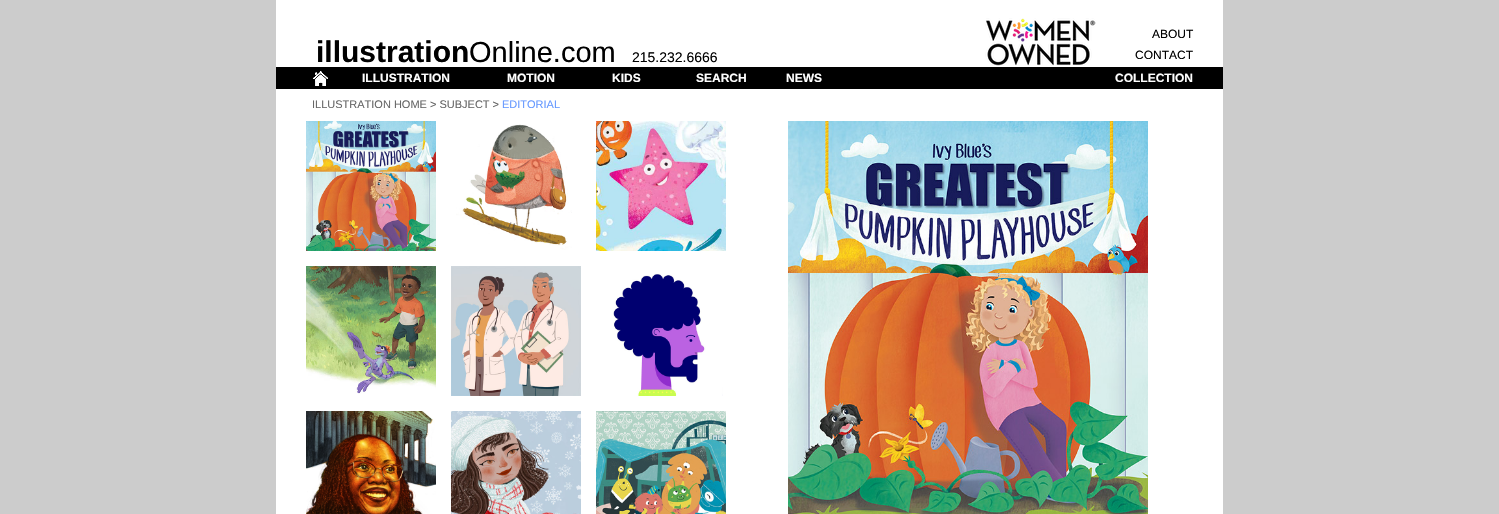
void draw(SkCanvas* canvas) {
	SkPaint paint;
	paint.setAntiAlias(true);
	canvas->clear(0xffcccccc);
	paint.setColor(0xffffffff);
	canvas->drawRect(SkRect::MakeXYWH(276, 0, 947, 514), paint);
	SkFont f1(fontMgr->matchFamilyStyle("Liberation Sans", SkFontStyle::Normal()), 12);
	f1.setSubpixel(true);
	paint.setColor(0xff000000);
	canvas->drawString("ABOUT", 1152, 38, f1, paint);
	SkFont f2(fontMgr->matchFamilyStyle("Liberation Sans", SkFontStyle::Bold()), 30);
	f2.setSubpixel(true);
	canvas->drawString("illustration", 316, 62, f2, paint);
	SkFont f3(fontMgr->matchFamilyStyle("Liberation Sans", SkFontStyle::Normal()), 29);
	f3.setSubpixel(true);
	canvas->drawString("Online.com", 469, 62, f3, paint);
	SkFont f4(fontMgr->matchFamilyStyle("Liberation Sans", SkFontStyle::Normal()), 14);
	f4.setSubpixel(true);
	canvas->drawString("215.232.6666", 632, 62, f4, paint);
	canvas->drawImageRect(SkImages::DeferredFromEncodedData(SkData::MakeFromFileName("img1.png")), SkRect::MakeXYWH(985, 18, 111, 48), SkSamplingOptions());
	canvas->drawString("CONTACT", 1135, 59, f1, paint);
	canvas->drawRect(SkRect::MakeXYWH(276, 67, 947, 22), paint);
	canvas->drawImageRect(SkImages::DeferredFromEncodedData(SkData::MakeFromFileName("img2.png")), SkRect::MakeXYWH(313, 71, 15, 15), SkSamplingOptions());
	SkFont f5(fontMgr->matchFamilyStyle("Liberation Sans", SkFontStyle::Bold()), 12);
	f5.setSubpixel(true);
	paint.setColor(0xffffffff);
	canvas->drawString("ILLUSTRATION", 362, 82, f5, paint);
	canvas->drawString("MOTION", 507, 82, f5, paint);
	canvas->drawString("KIDS", 612, 82, f5, paint);
	canvas->drawString("SEARCH", 696, 82, f5, paint);
	canvas->drawString("NEWS", 786, 82, f5, paint);
	canvas->drawString("COLLECTION", 1115, 82, f5, paint);
	SkFont f6(fontMgr->matchFamilyStyle("Liberation Sans", SkFontStyle::Normal()), 11);
	f6.setSubpixel(true);
	paint.setColor(0xff666666);
	canvas->drawString("ILLUSTRATION HOME > SUBJECT >", 312, 108, f6, paint);
	paint.setColor(0xff6699ff);
	canvas->drawString("EDITORIAL", 502, 108, f6, paint);
	canvas->drawImageRect(SkImages::DeferredFromEncodedData(SkData::MakeFromFileName("img3.png")), SkRect::MakeXYWH(306, 121, 130, 130), SkSamplingOptions());
	canvas->drawImageRect(SkImages::DeferredFromEncodedData(SkData::MakeFromFileName("img4.png")), SkRect::MakeXYWH(456, 124, 116, 126), SkSamplingOptions());
	canvas->drawImageRect(SkImages::DeferredFromEncodedData(SkData::MakeFromFileName("img5.png")), SkRect::MakeXYWH(596, 121, 130, 130), SkSamplingOptions());
	canvas->drawImageRect(SkImages::DeferredFromEncodedData(SkData::MakeFromFileName("img6.png")), SkRect::MakeXYWH(788, 121, 360, 393), SkSamplingOptions());
	canvas->drawImageRect(SkImages::DeferredFromEncodedData(SkData::MakeFromFileName("img7.png")), SkRect::MakeXYWH(306, 266, 130, 128), SkSamplingOptions());
	canvas->drawImageRect(SkImages::DeferredFromEncodedData(SkData::MakeFromFileName("img8.png")), SkRect::MakeXYWH(451, 266, 130, 130), SkSamplingOptions());
	canvas->drawImageRect(SkImages::DeferredFromEncodedData(SkData::MakeFromFileName("img9.png")), SkRect::MakeXYWH(613, 273, 110, 123), SkSamplingOptions());
	canvas->drawImageRect(SkImages::DeferredFromEncodedData(SkData::MakeFromFileName("img10.png")), SkRect::MakeXYWH(306, 411, 130, 103), SkSamplingOptions());
	canvas->drawImageRect(SkImages::DeferredFromEncodedData(SkData::MakeFromFileName("img11.png")), SkRect::MakeXYWH(451, 411, 130, 103), SkSamplingOptions());
	canvas->drawImageRect(SkImages::DeferredFromEncodedData(SkData::MakeFromFileName("img12.png")), SkRect::MakeXYWH(596, 411, 130, 103), SkSamplingOptions());
}
